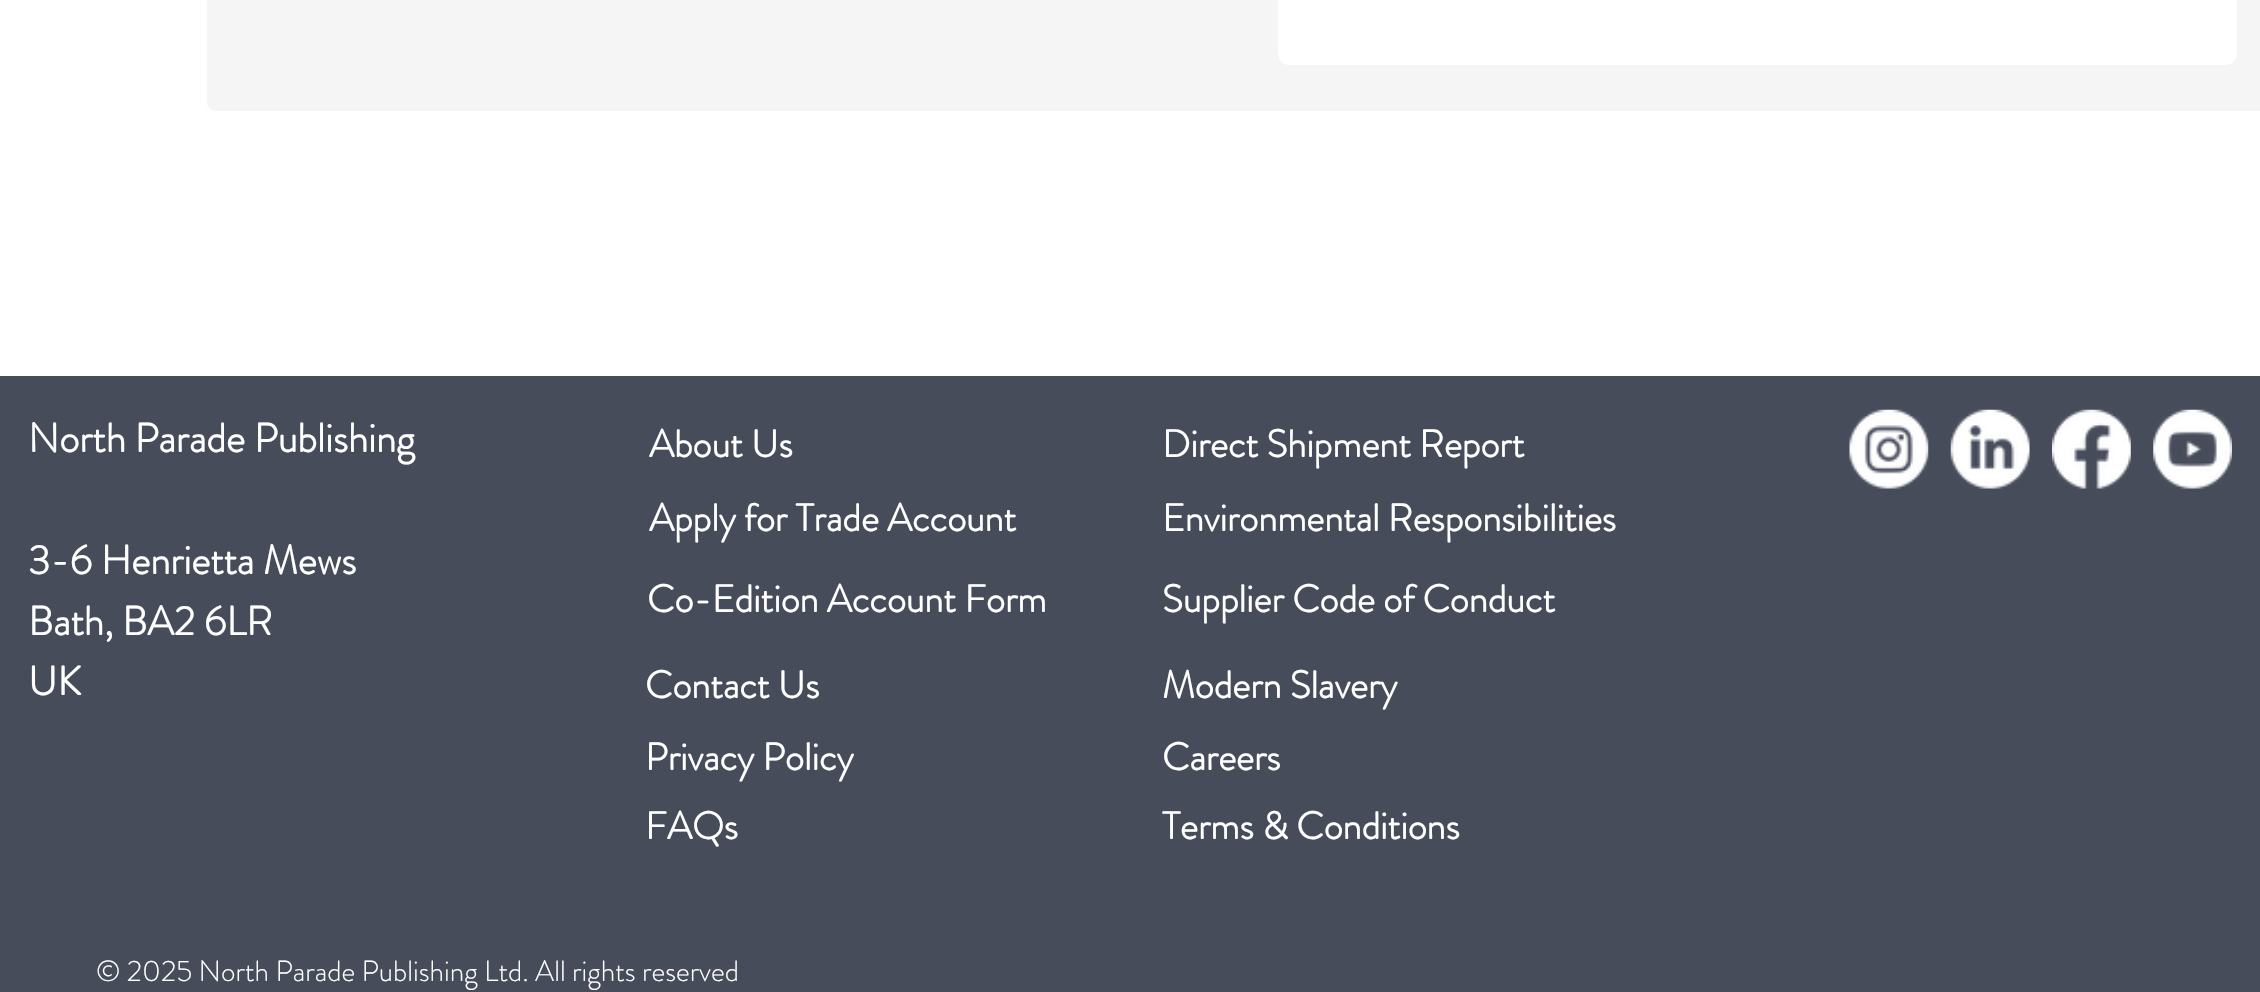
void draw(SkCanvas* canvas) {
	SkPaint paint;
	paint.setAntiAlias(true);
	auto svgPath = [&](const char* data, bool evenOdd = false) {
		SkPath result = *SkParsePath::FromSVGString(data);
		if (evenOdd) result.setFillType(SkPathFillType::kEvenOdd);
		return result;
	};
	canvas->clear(0xffffffff);
	paint.setColor(0xfff5f5f5);
	canvas->drawPath(svgPath("M216-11H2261V113H216C210 113 205 108 205 102V0C205-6 210-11 216-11Z"), paint);
	paint.setStroke(true);
	paint.setStrokeWidth(2);
	paint.setColor(0xffffffff);
	canvas->drawRoundRect(SkRect::MakeXYWH(206, -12, 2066, 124), 10, 10, paint);
	paint.setStroke(false);
	canvas->drawRoundRect(SkRect::MakeXYWH(1278, -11, 959, 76), 11, 11, paint);
	paint.setColor(0xff474c5b);
	canvas->drawRect(SkRect::MakeXYWH(0, 376, 2260, 616), paint);
	SkFont f1(fontMgr->matchFamilyStyle("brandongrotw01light", SkFontStyle::Bold()), 40.5);
	f1.setSubpixel(true);
	paint.setColor(0xffffffff);
	canvas->drawString("North Parade Publishing", 28, 452, f1, paint);
	SkFont f2(fontMgr->matchFamilyStyle("brandongrotw01light", SkFontStyle::Bold()), 38.25);
	f2.setSubpixel(true);
	canvas->drawString("About Us", 649, 457, f2, paint);
	canvas->drawString("Apply for Trade Account", 649, 531, f2, paint);
	canvas->drawString("Environmental Responsibilities", 1162, 531, f2, paint);
	canvas->drawString("Supplier Code of Conduct", 1162, 612, f2, paint);
	canvas->drawString("Contact Us", 645, 698, f2, paint);
	canvas->drawString("Modern Slavery", 1162, 698, f2, paint);
	canvas->drawString("Privacy Policy", 645, 770, f2, paint);
	canvas->drawString("FAQs", 645, 839, f2, paint);
	canvas->drawString("Terms & Conditions", 1162, 839, f2, paint);
	canvas->drawImageRect(SkImages::DeferredFromEncodedData(SkData::MakeFromFileName("img1.png")), SkRect::MakeXYWH(1849, 409, 80, 80), SkSamplingOptions());
	canvas->drawImageRect(SkImages::DeferredFromEncodedData(SkData::MakeFromFileName("img2.png")), SkRect::MakeXYWH(1950, 409, 80, 80), SkSamplingOptions());
	canvas->drawImageRect(SkImages::DeferredFromEncodedData(SkData::MakeFromFileName("img3.png")), SkRect::MakeXYWH(2052, 409, 79, 80), SkSamplingOptions());
	canvas->drawImageRect(SkImages::DeferredFromEncodedData(SkData::MakeFromFileName("img4.png")), SkRect::MakeXYWH(2153, 409, 79, 80), SkSamplingOptions());
	canvas->drawString("Direct Shipment Report", 1162, 457, f2, paint);
	canvas->drawString("3-6 Henrietta Mews", 28, 574, f1, paint);
	canvas->drawString("Bath, BA2 6LR", 28, 635, f1, paint);
	canvas->drawString("UK", 28, 695, f1, paint);
	canvas->drawString("Co-Edition Account Form", 647, 612, f2, paint);
	canvas->drawString("Careers", 1162, 770, f2, paint);
	SkFont f3(fontMgr->matchFamilyStyle("brandongrotw01light", SkFontStyle(300, SkFontStyle::kNormal_Width, SkFontStyle::kUpright_Slant)), 29.25);
	f3.setSubpixel(true);
	canvas->drawString("© 2025 North Parade Publishing Ltd. All rights reserved", 96, 981, f3, paint);
}
